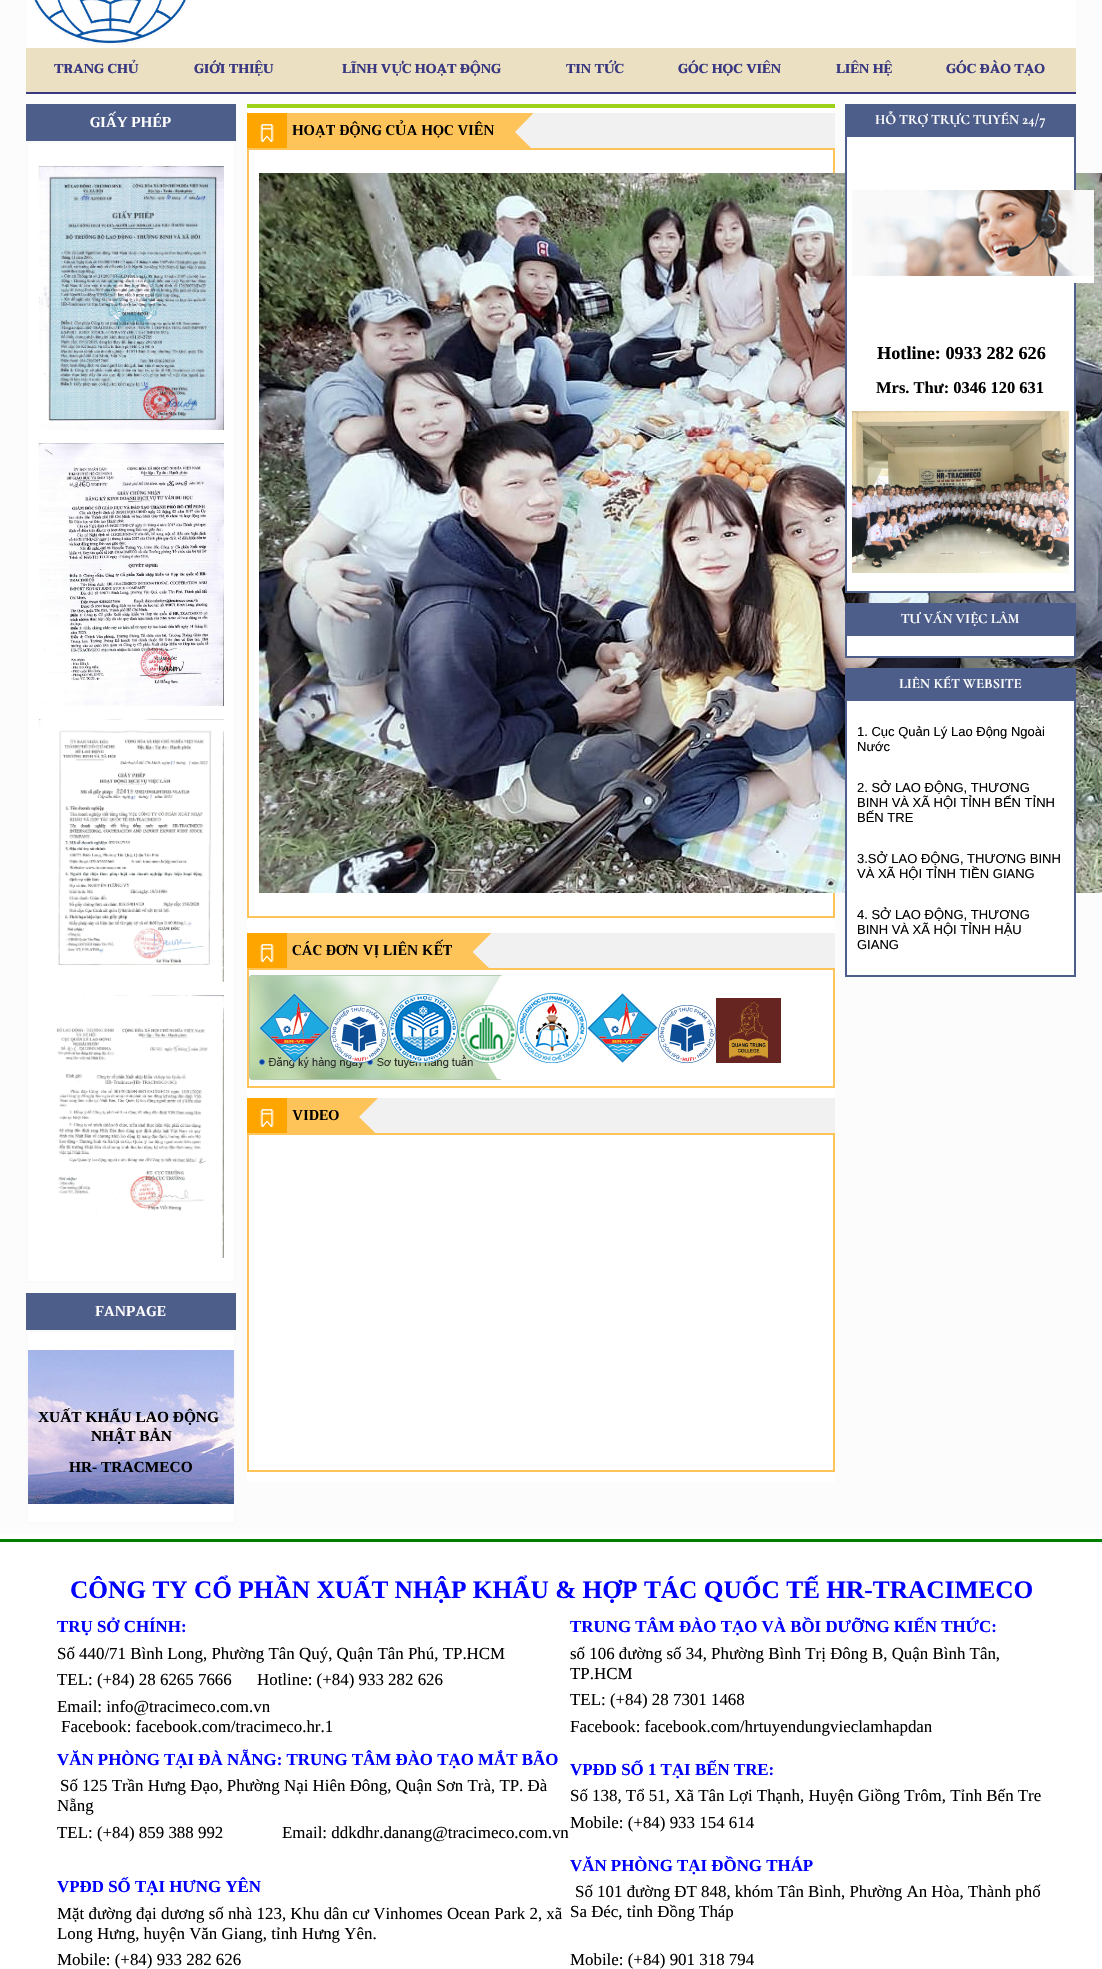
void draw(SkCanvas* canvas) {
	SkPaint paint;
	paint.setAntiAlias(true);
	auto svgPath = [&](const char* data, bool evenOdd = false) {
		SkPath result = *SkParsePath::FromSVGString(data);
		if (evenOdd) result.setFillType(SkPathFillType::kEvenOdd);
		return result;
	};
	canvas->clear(0xfffdfcfc);
	paint.setColor(0xffffffff);
	canvas->drawRect(SkRect::MakeXYWH(26, 0, 1050, 48), paint);
	canvas->drawImageRect(SkImages::DeferredFromEncodedData(SkData::MakeFromFileName("img1.png")), SkRect::MakeXYWH(33, 0, 155, 45), SkSamplingOptions());
	paint.setColor(0xffebe0c1);
	canvas->drawRect(SkRect::MakeXYWH(26, 48, 1050, 44), paint);
	paint.setColor(0xff393881);
	canvas->drawRect(SkRect::MakeXYWH(26, 92, 1050, 2), paint);
	SkFont f1(fontMgr->matchFamilyStyle("Taviraj", SkFontStyle::Bold()), 13);
	f1.setSubpixel(true);
	canvas->drawString("TRANG CHỦ", 54, 73, f1, paint);
	canvas->drawString("GIỚI THIỆU", 194, 73, f1, paint);
	canvas->drawString("LĨNH VỰC HOẠT ĐỘNG", 342, 73, f1, paint);
	canvas->drawString("TIN TỨC", 566, 73, f1, paint);
	canvas->drawString("GÓC HỌC VIÊN", 678, 73, f1, paint);
	canvas->drawString("LIÊN HỆ", 836, 73, f1, paint);
	canvas->drawString("GÓC ĐÀO TẠO", 946, 73, f1, paint);
	paint.setColor(0xff4e5e8a);
	canvas->drawRect(SkRect::MakeXYWH(26, 104, 210, 37), paint);
	SkFont f2(fontMgr->matchFamilyStyle("Trirong", SkFontStyle::Bold()), 14.25);
	f2.setSubpixel(true);
	paint.setColor(0xffffffff);
	canvas->drawString("GIẤY PHÉP", 90, 127, f2, paint);
	canvas->drawRect(SkRect::MakeXYWH(27, 142, 208, 1140), paint);
	paint.setStroke(true);
	paint.setStrokeWidth(2);
	paint.setColor(0xfffafafa);
	canvas->drawRect(SkRect::MakeXYWH(27, 142, 208, 1140), paint);
	canvas->drawImageRect(SkImages::DeferredFromEncodedData(SkData::MakeFromFileName("img2.png")), SkRect::MakeXYWH(38, 166, 186, 264), SkSamplingOptions());
	canvas->drawImageRect(SkImages::DeferredFromEncodedData(SkData::MakeFromFileName("img3.png")), SkRect::MakeXYWH(38, 443, 186, 263), SkSamplingOptions());
	canvas->drawImageRect(SkImages::DeferredFromEncodedData(SkData::MakeFromFileName("img4.png")), SkRect::MakeXYWH(38, 719, 186, 263), SkSamplingOptions());
	canvas->drawImageRect(SkImages::DeferredFromEncodedData(SkData::MakeFromFileName("img5.png")), SkRect::MakeXYWH(56, 995, 168, 263), SkSamplingOptions());
	paint.setStroke(false);
	paint.setColor(0xff4e5e8a);
	canvas->drawRect(SkRect::MakeXYWH(26, 1293, 210, 37), paint);
	paint.setColor(0xffffffff);
	canvas->drawString("FANPAGE", 95, 1316, f2, paint);
	canvas->drawRect(SkRect::MakeXYWH(27, 1331, 208, 192), paint);
	paint.setStroke(true);
	paint.setColor(0xfffafafa);
	canvas->drawRect(SkRect::MakeXYWH(27, 1331, 208, 192), paint);
	canvas->drawImageRect(SkImages::DeferredFromEncodedData(SkData::MakeFromFileName("img6.png")), SkRect::MakeXYWH(28, 1350, 206, 154), SkSamplingOptions());
	SkFont f3(fontMgr->matchFamilyStyle("Liberation Serif", SkFontStyle::Bold()), 15.4);
	f3.setSubpixel(true);
	paint.setStroke(false);
	paint.setColor(0xff000000);
	canvas->drawString("XUẤT KHẨU LAO ĐỘNG", 38, 1422, f3, paint);
	canvas->drawString("NHẬT BẢN", 91, 1441, f3, paint);
	canvas->drawString("HR- TRACMECO", 69, 1472, f3, paint);
	paint.setColor(0xffffffff);
	canvas->drawRect(SkRect::MakeXYWH(247, 108, 588, 1374), paint);
	paint.setColor(0xff9ecf19);
	canvas->drawRect(SkRect::MakeXYWH(247, 104, 588, 4), paint);
	paint.setColor(0xfff1f1f1);
	canvas->drawRect(SkRect::MakeXYWH(535, 113, 300, 35), paint);
	paint.setColor(0xfffec45a);
	canvas->drawRect(SkRect::MakeXYWH(287, 113, 247, 35), paint);
	paint.setColor(0xffffa500);
	canvas->drawRect(SkRect::MakeXYWH(247, 113, 40, 35), paint);
	canvas->drawImageRect(SkImages::DeferredFromEncodedData(SkData::MakeFromFileName("img7.png")), SkRect::MakeXYWH(260, 124, 14, 18), SkSamplingOptions());
	paint.setColor(0xff000000);
	canvas->drawString("HOẠT ĐỘNG CỦA HỌC VIÊN", 292, 135, f2, paint);
	canvas->save();
	canvas->clipRect(SkRect::MakeXYWH(247, 113, 588, 35));
	paint.setColor(0xfff1f1f1);
	canvas->drawPath(svgPath("M515 132L534.5 112L554.5 132L534.5 151.5Z"), paint);
	canvas->restore();
	paint.setStroke(true);
	paint.setColor(0xfffec45a);
	canvas->drawRect(SkRect::MakeXYWH(248, 149, 586, 768), paint);
	canvas->drawImageRect(SkImages::DeferredFromEncodedData(SkData::MakeFromFileName("img8.png")), SkRect::MakeXYWH(259, 173, 843, 720), SkSamplingOptions());
	paint.setStroke(false);
	paint.setColor(0xfff1f1f1);
	canvas->drawRect(SkRect::MakeXYWH(493, 933, 342, 35), paint);
	paint.setColor(0xfffec45a);
	canvas->drawRect(SkRect::MakeXYWH(287, 933, 205, 35), paint);
	paint.setColor(0xffffa500);
	canvas->drawRect(SkRect::MakeXYWH(247, 933, 40, 35), paint);
	canvas->drawImageRect(SkImages::DeferredFromEncodedData(SkData::MakeFromFileName("img7.png")), SkRect::MakeXYWH(260, 944, 14, 18), SkSamplingOptions());
	paint.setColor(0xff000000);
	canvas->drawString("CÁC ĐƠN VỊ LIÊN KẾT", 292, 955, f2, paint);
	canvas->save();
	canvas->clipRect(SkRect::MakeXYWH(247, 933, 588, 35));
	paint.setColor(0xfff1f1f1);
	canvas->drawPath(svgPath("M472.5 952L492.5 932L512.5 952L492.5 971.5Z"), paint);
	canvas->restore();
	canvas->drawImageRect(SkImages::DeferredFromEncodedData(SkData::MakeFromFileName("img9.png")), SkRect::MakeXYWH(249, 975, 253, 105), SkSamplingOptions());
	paint.setStroke(true);
	paint.setColor(0xfffec45a);
	canvas->drawRect(SkRect::MakeXYWH(248, 969, 586, 118), paint);
	canvas->drawImageRect(SkImages::DeferredFromEncodedData(SkData::MakeFromFileName("img10.png")), SkRect::MakeXYWH(259, 993, 71, 70), SkSamplingOptions());
	canvas->drawImageRect(SkImages::DeferredFromEncodedData(SkData::MakeFromFileName("img11.png")), SkRect::MakeXYWH(330, 1005, 58, 58), SkSamplingOptions());
	canvas->drawImageRect(SkImages::DeferredFromEncodedData(SkData::MakeFromFileName("img12.png")), SkRect::MakeXYWH(388, 994, 70, 69), SkSamplingOptions());
	canvas->drawImageRect(SkImages::DeferredFromEncodedData(SkData::MakeFromFileName("img13.png")), SkRect::MakeXYWH(458, 1005, 59, 58), SkSamplingOptions());
	canvas->drawImageRect(SkImages::DeferredFromEncodedData(SkData::MakeFromFileName("img14.png")), SkRect::MakeXYWH(517, 993, 70, 70), SkSamplingOptions());
	canvas->drawImageRect(SkImages::DeferredFromEncodedData(SkData::MakeFromFileName("img15.png")), SkRect::MakeXYWH(587, 993, 71, 70), SkSamplingOptions());
	canvas->drawImageRect(SkImages::DeferredFromEncodedData(SkData::MakeFromFileName("img16.png")), SkRect::MakeXYWH(658, 1005, 58, 58), SkSamplingOptions());
	canvas->drawImageRect(SkImages::DeferredFromEncodedData(SkData::MakeFromFileName("img17.png")), SkRect::MakeXYWH(716, 998, 65, 65), SkSamplingOptions());
	paint.setStroke(false);
	paint.setColor(0xfff1f1f1);
	canvas->drawRect(SkRect::MakeXYWH(380, 1098, 455, 35), paint);
	paint.setColor(0xfffec45a);
	canvas->drawRect(SkRect::MakeXYWH(287, 1098, 91, 35), paint);
	paint.setColor(0xffffa500);
	canvas->drawRect(SkRect::MakeXYWH(247, 1098, 40, 35), paint);
	canvas->drawImageRect(SkImages::DeferredFromEncodedData(SkData::MakeFromFileName("img7.png")), SkRect::MakeXYWH(260, 1109, 14, 18), SkSamplingOptions());
	paint.setColor(0xff000000);
	canvas->drawString("VIDEO", 292, 1120, f2, paint);
	canvas->save();
	canvas->clipRect(SkRect::MakeXYWH(247, 1098, 588, 35));
	paint.setColor(0xfff1f1f1);
	canvas->drawPath(svgPath("M359 1117L379 1097L398.5 1117L379 1136.5Z"), paint);
	canvas->restore();
	paint.setStroke(true);
	paint.setColor(0xfffec45a);
	canvas->drawRect(SkRect::MakeXYWH(248, 1134, 586, 337), paint);
	paint.setStroke(false);
	paint.setColor(0xff4e5e8a);
	canvas->drawRect(SkRect::MakeXYWH(845, 104, 231, 31), paint);
	SkFont f4(fontMgr->matchFamilyStyle("Cormorant Upright", SkFontStyle::Bold()), 14.25);
	f4.setSubpixel(true);
	paint.setColor(0xffffffff);
	canvas->drawString("HỖ TRỢ TRỰC TUYẾN 24/7", 875, 124, f4, paint);
	canvas->drawRect(SkRect::MakeXYWH(846, 136, 229, 456), paint);
	paint.setStroke(true);
	paint.setColor(0xff4e5e8a);
	canvas->drawRect(SkRect::MakeXYWH(846, 136, 229, 456), paint);
	canvas->drawImageRect(SkImages::DeferredFromEncodedData(SkData::MakeFromFileName("img18.png")), SkRect::MakeXYWH(852, 190, 242, 86), SkSamplingOptions());
	paint.setStroke(false);
	paint.setColor(0xffffffff);
	canvas->drawRect(SkRect::MakeXYWH(1074, 276, 20, 7), paint);
	SkFont f5(fontMgr->matchFamilyStyle("Liberation Serif", SkFontStyle::Bold()), 18.25);
	f5.setSubpixel(true);
	paint.setColor(0xff000000);
	canvas->drawString("Hotline: 0933 282 626", 877, 359, f5, paint);
	SkFont f6(fontMgr->matchFamilyStyle("Liberation Serif", SkFontStyle::Bold()), 16.5);
	f6.setSubpixel(true);
	canvas->drawString("Mrs. Thư: 0346 120 631", 876, 393, f6, paint);
	canvas->drawImageRect(SkImages::DeferredFromEncodedData(SkData::MakeFromFileName("img19.png")), SkRect::MakeXYWH(852, 411, 217, 162), SkSamplingOptions());
	paint.setColor(0xff4e5e8a);
	canvas->drawRect(SkRect::MakeXYWH(845, 603, 231, 31), paint);
	paint.setColor(0xffffffff);
	canvas->drawString("TƯ VẤN VIỆC LÀM", 901, 623, f4, paint);
	canvas->drawRect(SkRect::MakeXYWH(846, 635, 229, 22), paint);
	paint.setStroke(true);
	paint.setColor(0xff4e5e8a);
	canvas->drawRect(SkRect::MakeXYWH(846, 635, 229, 22), paint);
	paint.setStroke(false);
	canvas->drawRect(SkRect::MakeXYWH(845, 668, 231, 31), paint);
	paint.setColor(0xffffffff);
	canvas->drawString("LIÊN KẾT WEBSITE", 899, 688, f4, paint);
	canvas->drawRect(SkRect::MakeXYWH(846, 700, 229, 276), paint);
	paint.setStroke(true);
	paint.setColor(0xff4e5e8a);
	canvas->drawRect(SkRect::MakeXYWH(846, 700, 229, 276), paint);
	SkFont f7(fontMgr->matchFamilyStyle("Liberation Sans", SkFontStyle::Normal()), 13);
	f7.setSubpixel(true);
	paint.setStroke(false);
	paint.setColor(0xff000000);
	canvas->drawString("1. Cục Quản Lý Lao Động Ngoài", 857, 736, f7, paint);
	canvas->drawString("Nước", 857, 751, f7, paint);
	canvas->drawString("2. SỞ LAO ĐỘNG, THƯƠNG", 857, 792, f7, paint);
	canvas->drawString("BINH VÀ XÃ HỘI TỈNH BẾN TỈNH", 857, 807, f7, paint);
	canvas->drawString("BẾN TRE", 857, 822, f7, paint);
	canvas->drawString("3.SỞ LAO ĐỘNG, THƯƠNG BINH", 857, 863, f7, paint);
	canvas->drawString("VÀ XÃ HỘI TỈNH TIỀN GIANG", 857, 878, f7, paint);
	canvas->drawString("4. SỞ LAO ĐỘNG, THƯƠNG", 857, 919, f7, paint);
	canvas->drawString("BINH VÀ XÃ HỘI TỈNH HẬU", 857, 934, f7, paint);
	canvas->drawString("GIANG", 857, 949, f7, paint);
	paint.setColor(0xffffffff);
	canvas->drawRect(SkRect::MakeXYWH(0, 1534, 1102, 435), paint);
	paint.setColor(0xff008000);
	canvas->drawRect(SkRect::MakeXYWH(0, 1539, 1102, 3), paint);
	SkFont f8(fontMgr->matchFamilyStyle("Liberation Serif", SkFontStyle::Bold()), 25.35);
	f8.setSubpixel(true);
	paint.setColor(0xff0000ff);
	canvas->drawString("CÔNG TY CỔ PHẦN XUẤT NHẬP KHẨU & HỢP TÁC QUỐC TẾ HR-TRACIMECO", 70, 1598, f8, paint);
	SkFont f9(fontMgr->matchFamilyStyle("Liberation Serif", SkFontStyle::Bold()), 16.9);
	f9.setSubpixel(true);
	canvas->drawString("TRỤ SỞ CHÍNH:", 57, 1632, f9, paint);
	SkFont f10(fontMgr->matchFamilyStyle("Liberation Serif", SkFontStyle::Normal()), 16.9);
	f10.setSubpixel(true);
	paint.setColor(0xff000000);
	canvas->drawString("Số 440/71 Bình Long, Phường Tân Quý, Quận Tân Phú, TP.HCM", 57, 1659, f10, paint);
	canvas->drawString("TEL: (+84) 28 6265 7666", 57, 1685, f10, paint);
	canvas->drawString("Hotline: (+84) 933 282 626", 257, 1685, f10, paint);
	canvas->drawString("Email: info@tracimeco.com.vn", 57, 1712, f10, paint);
	canvas->drawString("Facebook: facebook.com/tracimeco.hr.1", 61, 1732, f10, paint);
	paint.setColor(0xff0000ff);
	canvas->drawString("TRUNG TÂM ĐÀO TẠO VÀ BỒI DƯỠNG KIẾN THỨC:", 570, 1632, f9, paint);
	paint.setColor(0xff000000);
	canvas->drawString("số 106 đường số 34, Phường Bình Trị Đông B, Quận Bình Tân,", 570, 1659, f10, paint);
	canvas->drawString("TP.HCM", 570, 1679, f10, paint);
	canvas->drawString("TEL: (+84) 28 7301 1468", 570, 1705, f10, paint);
	canvas->drawString("Facebook: facebook.com/hrtuyendungvieclamhapdan", 570, 1732, f10, paint);
	paint.setColor(0xff0000ff);
	canvas->drawString("VĂN PHÒNG TẠI ĐÀ NẴNG: TRUNG TÂM ĐÀO TẠO MẮT BÃO", 57, 1765, f9, paint);
	paint.setColor(0xff000000);
	canvas->drawString("Số 125 Trần Hưng Đạo, Phường Nại Hiên Đông, Quận Sơn Trà, TP. Đà", 60, 1791, f10, paint);
	canvas->drawString("Nẵng", 57, 1811, f10, paint);
	canvas->drawString("TEL: (+84) 859 388 992", 57, 1838, f10, paint);
	canvas->drawString("Email: ddkdhr.danang@tracimeco.com.vn", 282, 1838, f10, paint);
	paint.setColor(0xff0000ff);
	canvas->drawString("VPĐD SỐ 1 TẠI BẾN TRE:", 570, 1775, f9, paint);
	paint.setColor(0xff000000);
	canvas->drawString("Số 138, Tổ 51, Xã Tân Lợi Thạnh, Huyện Giồng Trôm, Tỉnh Bến Tre", 570, 1801, f10, paint);
	canvas->drawString("Mobile: (+84) 933 154 614", 570, 1828, f10, paint);
	paint.setColor(0xff0000ff);
	canvas->drawString("VPĐD SỐ TẠI HƯNG YÊN", 57, 1892, f9, paint);
	paint.setColor(0xff000000);
	canvas->drawString("Mặt đường đại dương số nhà 123, Khu dân cư Vinhomes Ocean Park 2, xã", 57, 1919, f10, paint);
	canvas->drawString("Long Hưng, huyện Văn Giang, tỉnh Hưng Yên.", 57, 1939, f10, paint);
	canvas->drawString("Mobile: (+84) 933 282 626", 57, 1965, f10, paint);
	paint.setColor(0xff0000ff);
	canvas->drawString("VĂN PHÒNG TẠI ĐỒNG THÁP", 570, 1871, f9, paint);
	paint.setColor(0xff000000);
	canvas->drawString("Số 101 đường ĐT 848, khóm Tân Bình, Phường An Hòa, Thành phố", 575, 1897, f10, paint);
	canvas->drawString("Sa Đéc, tỉnh Đồng Tháp", 570, 1917, f10, paint);
	canvas->drawString("Mobile: (+84) 901 318 794", 570, 1965, f10, paint);
}
